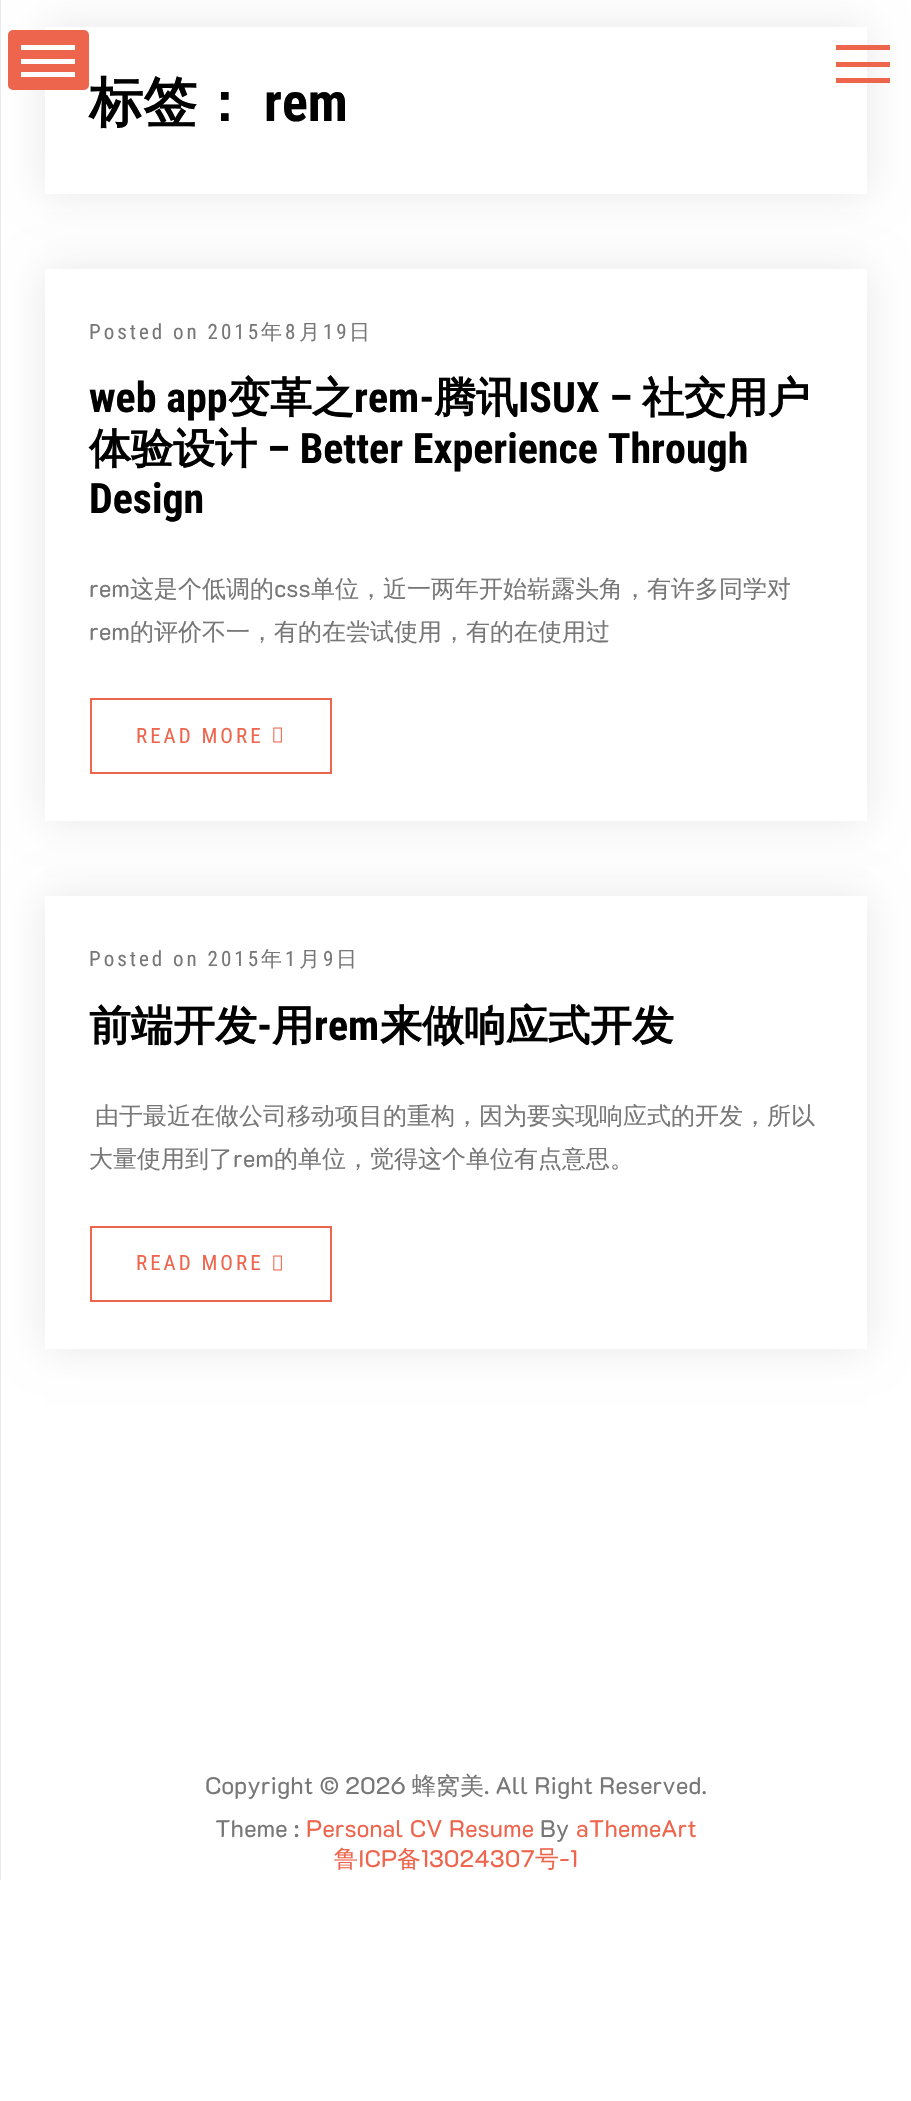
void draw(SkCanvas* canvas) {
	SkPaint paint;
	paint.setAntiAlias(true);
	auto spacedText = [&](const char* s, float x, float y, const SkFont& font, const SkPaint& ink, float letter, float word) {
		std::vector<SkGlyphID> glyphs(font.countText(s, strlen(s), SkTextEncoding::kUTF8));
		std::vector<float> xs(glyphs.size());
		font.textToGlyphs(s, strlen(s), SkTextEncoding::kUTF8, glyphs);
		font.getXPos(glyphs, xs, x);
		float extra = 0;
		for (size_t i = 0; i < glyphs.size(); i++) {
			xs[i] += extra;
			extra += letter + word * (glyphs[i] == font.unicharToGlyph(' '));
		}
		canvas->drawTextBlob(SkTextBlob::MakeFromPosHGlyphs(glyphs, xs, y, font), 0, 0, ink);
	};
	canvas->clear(0xffffffff);
	paint.setColor(0x17000000);
	paint.setMaskFilter(SkMaskFilter::MakeBlur(kNormal_SkBlurStyle, 19));
	canvas->drawRect(SkRect::MakeXYWH(45, 27, 822, 167), paint);
	paint.setMaskFilter(nullptr);
	paint.setMaskFilter(SkMaskFilter::MakeBlur(kNormal_SkBlurStyle, 19));
	canvas->drawRect(SkRect::MakeXYWH(45, 269, 822, 552), paint);
	paint.setMaskFilter(nullptr);
	paint.setMaskFilter(SkMaskFilter::MakeBlur(kNormal_SkBlurStyle, 19));
	canvas->drawRect(SkRect::MakeXYWH(45, 896, 822, 453), paint);
	paint.setMaskFilter(nullptr);
	paint.setColor(0xffeaeaea);
	canvas->drawRect(SkRect::MakeXYWH(0, 0, 1, 1880), paint);
	paint.setColor(0xffffffff);
	canvas->drawRect(SkRect::MakeXYWH(45, 27, 822, 167), paint);
	paint.setColor(0xffee654d);
	canvas->drawRoundRect(SkRect::MakeXYWH(9, 31, 79, 58), 4, 4, paint);
	paint.setStroke(true);
	paint.setStrokeWidth(2);
	canvas->drawRoundRect(SkRect::MakeXYWH(9, 31, 79, 58), 4, 4, paint);
	paint.setStroke(false);
	paint.setColor(0xffffffff);
	canvas->drawRect(SkRect::MakeXYWH(21, 45, 54, 5), paint);
	canvas->drawRect(SkRect::MakeXYWH(21, 59, 54, 5), paint);
	canvas->drawRect(SkRect::MakeXYWH(21, 72, 54, 5), paint);
	paint.setColor(0xffee654d);
	canvas->drawRect(SkRect::MakeXYWH(836, 45, 54, 5), paint);
	canvas->drawRect(SkRect::MakeXYWH(836, 62, 54, 5), paint);
	canvas->drawRect(SkRect::MakeXYWH(836, 78, 54, 5), paint);
	SkFont f1(fontMgr->matchFamilyStyle("WenQuanYi Zen Hei", SkFontStyle::Bold()), 54);
	f1.setSubpixel(true);
	paint.setColor(0xff000000);
	canvas->drawString("标签：", 89, 121, f1, paint);
	SkFont f2(fontMgr->matchFamilyStyle("Roboto Condensed", SkFontStyle::Bold()), 54);
	f2.setSubpixel(true);
	canvas->drawString("rem", 264, 121, f2, paint);
	paint.setColor(0xffffffff);
	canvas->drawRect(SkRect::MakeXYWH(45, 269, 822, 552), paint);
	SkFont f3(fontMgr->matchFamilyStyle("Roboto Condensed", SkFontStyle::Normal()), 21);
	f3.setSubpixel(true);
	paint.setColor(0xff777777);
	spacedText("Posted on 2015", 89, 339, f3, paint, 3, 0);
	SkFont f4(fontMgr->matchFamilyStyle("WenQuanYi Zen Hei", SkFontStyle(500, SkFontStyle::kNormal_Width, SkFontStyle::kUpright_Slant)), 21);
	f4.setSubpixel(true);
	spacedText("年", 261, 339, f4, paint, 3, 0);
	spacedText("8", 285, 339, f3, paint, 3, 0);
	spacedText("月", 299, 339, f4, paint, 3, 0);
	spacedText("19", 323, 339, f3, paint, 3, 0);
	spacedText("日", 349, 339, f4, paint, 3, 0);
	SkFont f5(fontMgr->matchFamilyStyle("Roboto Condensed", SkFontStyle::Bold()), 42);
	f5.setSubpixel(true);
	paint.setColor(0xff000000);
	canvas->drawString("web app", 89, 412, f5, paint);
	SkFont f6(fontMgr->matchFamilyStyle("WenQuanYi Zen Hei", SkFontStyle::Bold()), 42);
	f6.setSubpixel(true);
	canvas->drawString("变革之", 228, 412, f6, paint);
	canvas->drawString("rem-", 354, 412, f5, paint);
	canvas->drawString("腾讯", 434, 412, f6, paint);
	canvas->drawString("ISUX –", 518, 412, f5, paint);
	canvas->drawString("社交用户", 642, 412, f6, paint);
	canvas->drawString("体验设计", 89, 463, f6, paint);
	canvas->drawString("– Better Experience Through", 267, 463, f5, paint);
	canvas->drawString("Design", 89, 513, f5, paint);
	SkFont f7(fontMgr->matchFamilyStyle("K2D", SkFontStyle::Normal()), 24);
	f7.setSubpixel(true);
	paint.setColor(0xff777777);
	canvas->drawString("rem", 89, 597, f7, paint);
	SkFont f8(fontMgr->matchFamilyStyle("WenQuanYi Zen Hei", SkFontStyle(500, SkFontStyle::kNormal_Width, SkFontStyle::kUpright_Slant)), 24);
	f8.setSubpixel(true);
	canvas->drawString("这是个低调的", 130, 597, f8, paint);
	canvas->drawString("css", 274, 597, f7, paint);
	canvas->drawString("单位，近一两年开始崭露头角，有许多同学对", 311, 597, f8, paint);
	canvas->drawString("rem", 89, 640, f7, paint);
	canvas->drawString("的评价不一，有的在尝试使用，有的在使用过", 130, 640, f8, paint);
	paint.setStroke(true);
	paint.setColor(0xffee654d);
	canvas->drawRect(SkRect::MakeXYWH(91, 699, 240, 74), paint);
	paint.setStroke(false);
	spacedText("READ MORE", 136, 743, f3, paint, 3, 0);
	canvas->drawImageRect(SkImages::DeferredFromEncodedData(SkData::MakeFromFileName("img1.png")), SkRect::MakeXYWH(273, 727, 9, 16), SkSamplingOptions());
	paint.setColor(0xffffffff);
	canvas->drawRect(SkRect::MakeXYWH(45, 896, 822, 453), paint);
	paint.setColor(0xff777777);
	spacedText("Posted on 2015", 89, 966, f3, paint, 3, 0);
	spacedText("年", 261, 966, f4, paint, 3, 0);
	spacedText("1", 285, 966, f3, paint, 3, 0);
	spacedText("月", 299, 966, f4, paint, 3, 0);
	spacedText("9", 323, 966, f3, paint, 3, 0);
	spacedText("日", 336, 966, f4, paint, 3, 0);
	paint.setColor(0xff000000);
	canvas->drawString("前端开发", 89, 1040, f6, paint);
	canvas->drawString("-", 257, 1040, f5, paint);
	canvas->drawString("用", 272, 1040, f6, paint);
	canvas->drawString("rem", 314, 1040, f5, paint);
	canvas->drawString("来做响应式开发", 380, 1040, f6, paint);
	paint.setColor(0xff777777);
	canvas->drawString("由于最近在做公司移动项目的重构，因为要实现响应式的开发，所以", 95, 1124, f8, paint);
	canvas->drawString("大量使用到了", 89, 1167, f8, paint);
	canvas->drawString("rem", 233, 1167, f7, paint);
	canvas->drawString("的单位，觉得这个单位有点意思。", 274, 1167, f8, paint);
	paint.setStroke(true);
	paint.setColor(0xffee654d);
	canvas->drawRect(SkRect::MakeXYWH(91, 1227, 240, 74), paint);
	paint.setStroke(false);
	spacedText("READ MORE", 136, 1270, f3, paint, 3, 0);
	canvas->drawImageRect(SkImages::DeferredFromEncodedData(SkData::MakeFromFileName("img1.png")), SkRect::MakeXYWH(273, 1255, 9, 16), SkSamplingOptions());
	paint.setColor(0xff777777);
	canvas->drawString("Copyright © 2026", 205, 1794, f7, paint);
	canvas->drawString("蜂窝美", 412, 1794, f8, paint);
	canvas->drawString(". All Right Reserved.", 484, 1794, f7, paint);
	canvas->drawString("Theme :", 215, 1837, f7, paint);
	paint.setColor(0xffee654d);
	canvas->drawString("Personal CV Resume", 306, 1837, f7, paint);
	paint.setColor(0xff777777);
	canvas->drawString("By", 540, 1837, f7, paint);
	paint.setColor(0xffee654d);
	canvas->drawString("aThemeArt", 576, 1837, f7, paint);
	canvas->drawString("鲁", 334, 1867, f8, paint);
	canvas->drawString("ICP", 358, 1867, f7, paint);
	canvas->drawString("备", 397, 1867, f8, paint);
	canvas->drawString("13024307", 421, 1867, f7, paint);
	canvas->drawString("号", 535, 1867, f8, paint);
	canvas->drawString("-1", 559, 1867, f7, paint);
}
